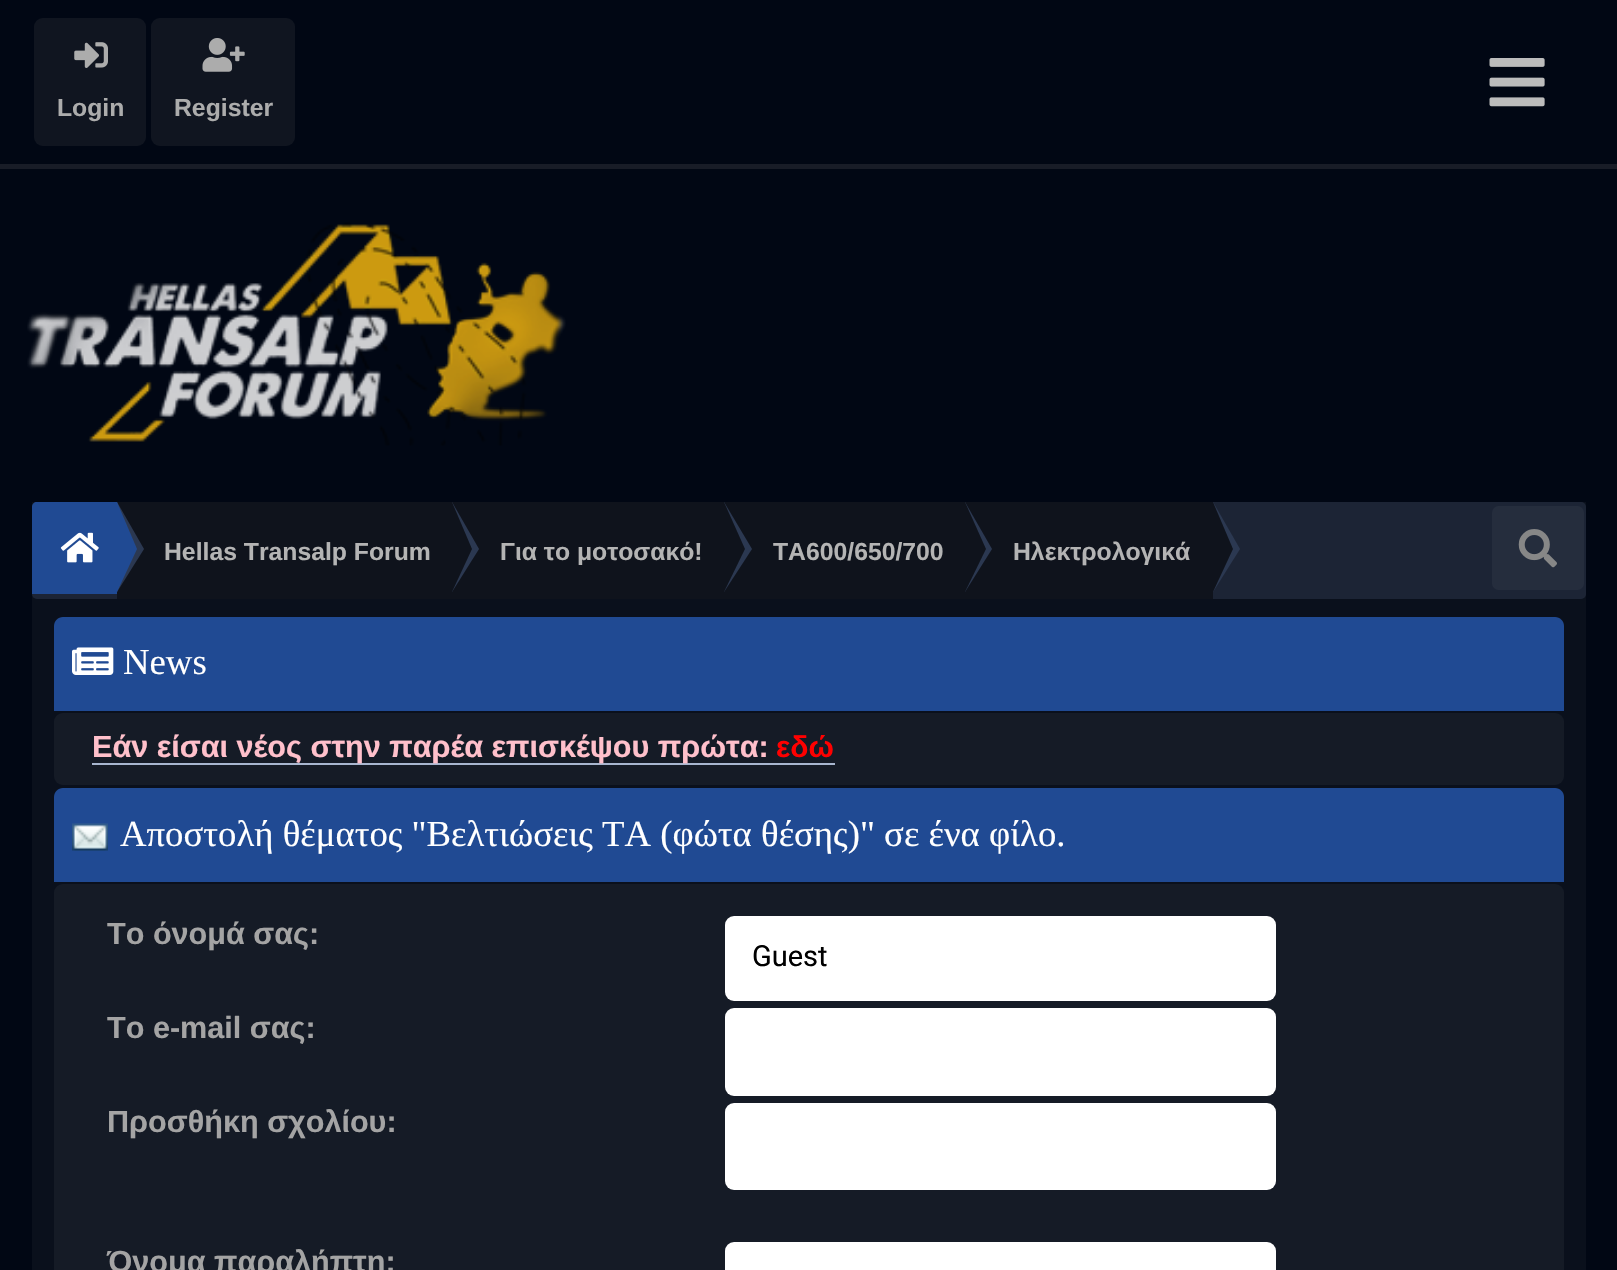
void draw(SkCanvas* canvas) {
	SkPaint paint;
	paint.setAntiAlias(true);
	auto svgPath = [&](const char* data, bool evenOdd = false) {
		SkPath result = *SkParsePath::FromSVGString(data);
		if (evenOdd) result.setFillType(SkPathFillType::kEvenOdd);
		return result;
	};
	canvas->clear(0xff010714);
	paint.setColor(0xff181c27);
	canvas->drawRect(SkRect::MakeXYWH(0, 164, 1617, 5), paint);
	canvas->drawImageRect(SkImages::DeferredFromEncodedData(SkData::MakeFromFileName("img1.png")), SkRect::MakeXYWH(1489, 58, 56, 49), SkSamplingOptions());
	paint.setColor(0xff101520);
	canvas->drawRoundRect(SkRect::MakeXYWH(34, 18, 112, 128), 9, 9, paint);
	canvas->drawImageRect(SkImages::DeferredFromEncodedData(SkData::MakeFromFileName("img2.png")), SkRect::MakeXYWH(74, 42, 34, 26), SkSamplingOptions());
	SkFont f1(fontMgr->matchFamilyStyle("Liberation Sans", SkFontStyle::Bold()), 24.75);
	f1.setSubpixel(true);
	paint.setColor(0xffacacac);
	canvas->drawString("Login", 57, 116, f1, paint);
	paint.setColor(0xff101520);
	canvas->drawRoundRect(SkRect::MakeXYWH(151, 18, 144, 128), 9, 9, paint);
	canvas->drawImageRect(SkImages::DeferredFromEncodedData(SkData::MakeFromFileName("img3.png")), SkRect::MakeXYWH(202, 38, 43, 34), SkSamplingOptions());
	paint.setColor(0xffacacac);
	canvas->drawString("Register", 174, 116, f1, paint);
	canvas->drawImageRect(SkImages::DeferredFromEncodedData(SkData::MakeFromFileName("img4.png")), SkRect::MakeXYWH(27, 222, 539, 224), SkSamplingOptions());
	paint.setColor(0xff0a101c);
	canvas->drawRect(SkRect::MakeXYWH(32, 502, 1554, 768), paint);
	paint.setColor(0xff1c2435);
	canvas->drawRoundRect(SkRect::MakeXYWH(32, 502, 1554, 97), 5, 5, paint);
	paint.setColor(0xff204a93);
	canvas->drawPath(svgPath("M37 502H117V594H32V507C32 504 34 502 37 502Z"), paint);
	canvas->drawImageRect(SkImages::DeferredFromEncodedData(SkData::MakeFromFileName("img5.png")), SkRect::MakeXYWH(60, 532, 39, 31), SkSamplingOptions());
	paint.setColor(0xff0f131c);
	canvas->drawRect(SkRect::MakeXYWH(117, 502, 1096, 97), paint);
	paint.setColor(0xff2b3851);
	canvas->drawPath(svgPath("M117 592V502L144 549Z"), paint);
	paint.setColor(0xff204a93);
	canvas->drawPath(svgPath("M117 592V502L137 549Z"), paint);
	paint.setColor(0xff2b3851);
	canvas->drawPath(svgPath("M452 592V502L479 549Z"), paint);
	paint.setColor(0xffb4b4b4);
	canvas->drawString("Hellas Transalp Forum", 164, 560, f1, paint);
	paint.setColor(0xff0f131c);
	canvas->drawPath(svgPath("M452 592V502L472 549Z"), paint);
	paint.setColor(0xff2b3851);
	canvas->drawPath(svgPath("M724 592V502L752 549Z"), paint);
	paint.setColor(0xffb4b4b4);
	canvas->drawString("Για το μοτοσακό!", 500, 560, f1, paint);
	paint.setColor(0xff0f131c);
	canvas->drawPath(svgPath("M724 592V502L745 549Z"), paint);
	paint.setColor(0xff2b3851);
	canvas->drawPath(svgPath("M965 592V502L992 549Z"), paint);
	paint.setColor(0xffb4b4b4);
	canvas->drawString("ΤΑ600/650/700", 773, 560, f1, paint);
	paint.setColor(0xff0f131c);
	canvas->drawPath(svgPath("M965 592V502L986 549Z"), paint);
	paint.setColor(0xff2b3851);
	canvas->drawPath(svgPath("M1213 592V502L1240 549Z"), paint);
	paint.setColor(0xffb4b4b4);
	canvas->drawString("Ηλεκτρολογικά", 1013, 560, f1, paint);
	paint.setColor(0xff0f131c);
	canvas->drawPath(svgPath("M1213 592V502L1233 549Z"), paint);
	paint.setColor(0xff252d3d);
	canvas->drawRoundRect(SkRect::MakeXYWH(1492, 506, 92, 84), 7, 7, paint);
	canvas->drawImageRect(SkImages::DeferredFromEncodedData(SkData::MakeFromFileName("img6.png")), SkRect::MakeXYWH(1518, 529, 39, 39), SkSamplingOptions());
	paint.setColor(0xff204a93);
	canvas->drawPath(svgPath("M63 617H1555C1560 617 1564 621 1564 626V711H54V626C54 621 58 617 63 617Z"), paint);
	canvas->drawImageRect(SkImages::DeferredFromEncodedData(SkData::MakeFromFileName("img7.png")), SkRect::MakeXYWH(72, 647, 42, 28), SkSamplingOptions());
	SkFont f2(fontMgr->matchFamilyStyle("Liberation Serif", SkFontStyle::Normal()), 36.75);
	f2.setSubpixel(true);
	paint.setColor(0xffffffff);
	canvas->drawString("News", 123, 674, f2, paint);
	paint.setColor(0xff151b26);
	canvas->drawRoundRect(SkRect::MakeXYWH(54, 713, 1510, 72), 9, 9, paint);
	paint.setColor(0xffa8b6cf);
	canvas->drawRect(SkRect::MakeXYWH(92, 763, 743, 2), paint);
	SkFont f3(fontMgr->matchFamilyStyle("Liberation Sans", SkFontStyle::Bold()), 30.6);
	f3.setSubpixel(true);
	paint.setColor(0xffffc0cb);
	canvas->drawString("Εάν είσαι νέος στην παρέα επισκέψου πρώτα:", 92, 757, f3, paint);
	SkFont f4(fontMgr->matchFamilyStyle("Liberation Sans", SkFontStyle::Bold()), 30);
	f4.setSubpixel(true);
	paint.setColor(0xffff0000);
	canvas->drawString("εδώ", 776, 757, f4, paint);
	paint.setColor(0xff204a93);
	canvas->drawPath(svgPath("M63 788H1555C1560 788 1564 792 1564 797V882H54V797C54 792 58 788 63 788Z"), paint);
	canvas->drawImageRect(SkImages::DeferredFromEncodedData(SkData::MakeFromFileName("img8.png")), SkRect::MakeXYWH(72, 823, 36, 28), SkSamplingOptions());
	paint.setColor(0xffffffff);
	canvas->drawString("Αποστολή θέματος \"Βελτιώσεις ΤΑ (φώτα θέσης)\" σε ένα φίλο.", 120, 846, f2, paint);
	paint.setColor(0xff151b26);
	canvas->drawRoundRect(SkRect::MakeXYWH(54, 884, 1510, 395), 9, 9, paint);
	paint.setColor(0xffa4a4a4);
	canvas->drawString("Το όνομά σας:", 107, 944, f3, paint);
	paint.setColor(0xffffffff);
	canvas->drawRoundRect(SkRect::MakeXYWH(725, 916, 551, 85), 9, 9, paint);
	SkFont f5(fontMgr->matchFamilyStyle("Roboto", SkFontStyle::Normal()), 29);
	f5.setSubpixel(true);
	paint.setColor(0xff000000);
	canvas->drawString("Guest", 752, 966, f5, paint);
	paint.setColor(0xffa4a4a4);
	canvas->drawString("Το e-mail σας:", 107, 1038, f3, paint);
	paint.setColor(0xffffffff);
	canvas->drawRoundRect(SkRect::MakeXYWH(725, 1008, 551, 88), 9, 9, paint);
	paint.setColor(0xffa4a4a4);
	canvas->drawString("Προσθήκη σχολίου:", 107, 1132, f3, paint);
	paint.setColor(0xffffffff);
	canvas->drawRoundRect(SkRect::MakeXYWH(725, 1103, 551, 87), 9, 9, paint);
	paint.setColor(0xffa4a4a4);
	canvas->drawString("Όνομα παραλήπτη:", 107, 1272, f3, paint);
	paint.setColor(0xffffffff);
	canvas->drawRoundRect(SkRect::MakeXYWH(725, 1242, 551, 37), 9, 9, paint);
}
